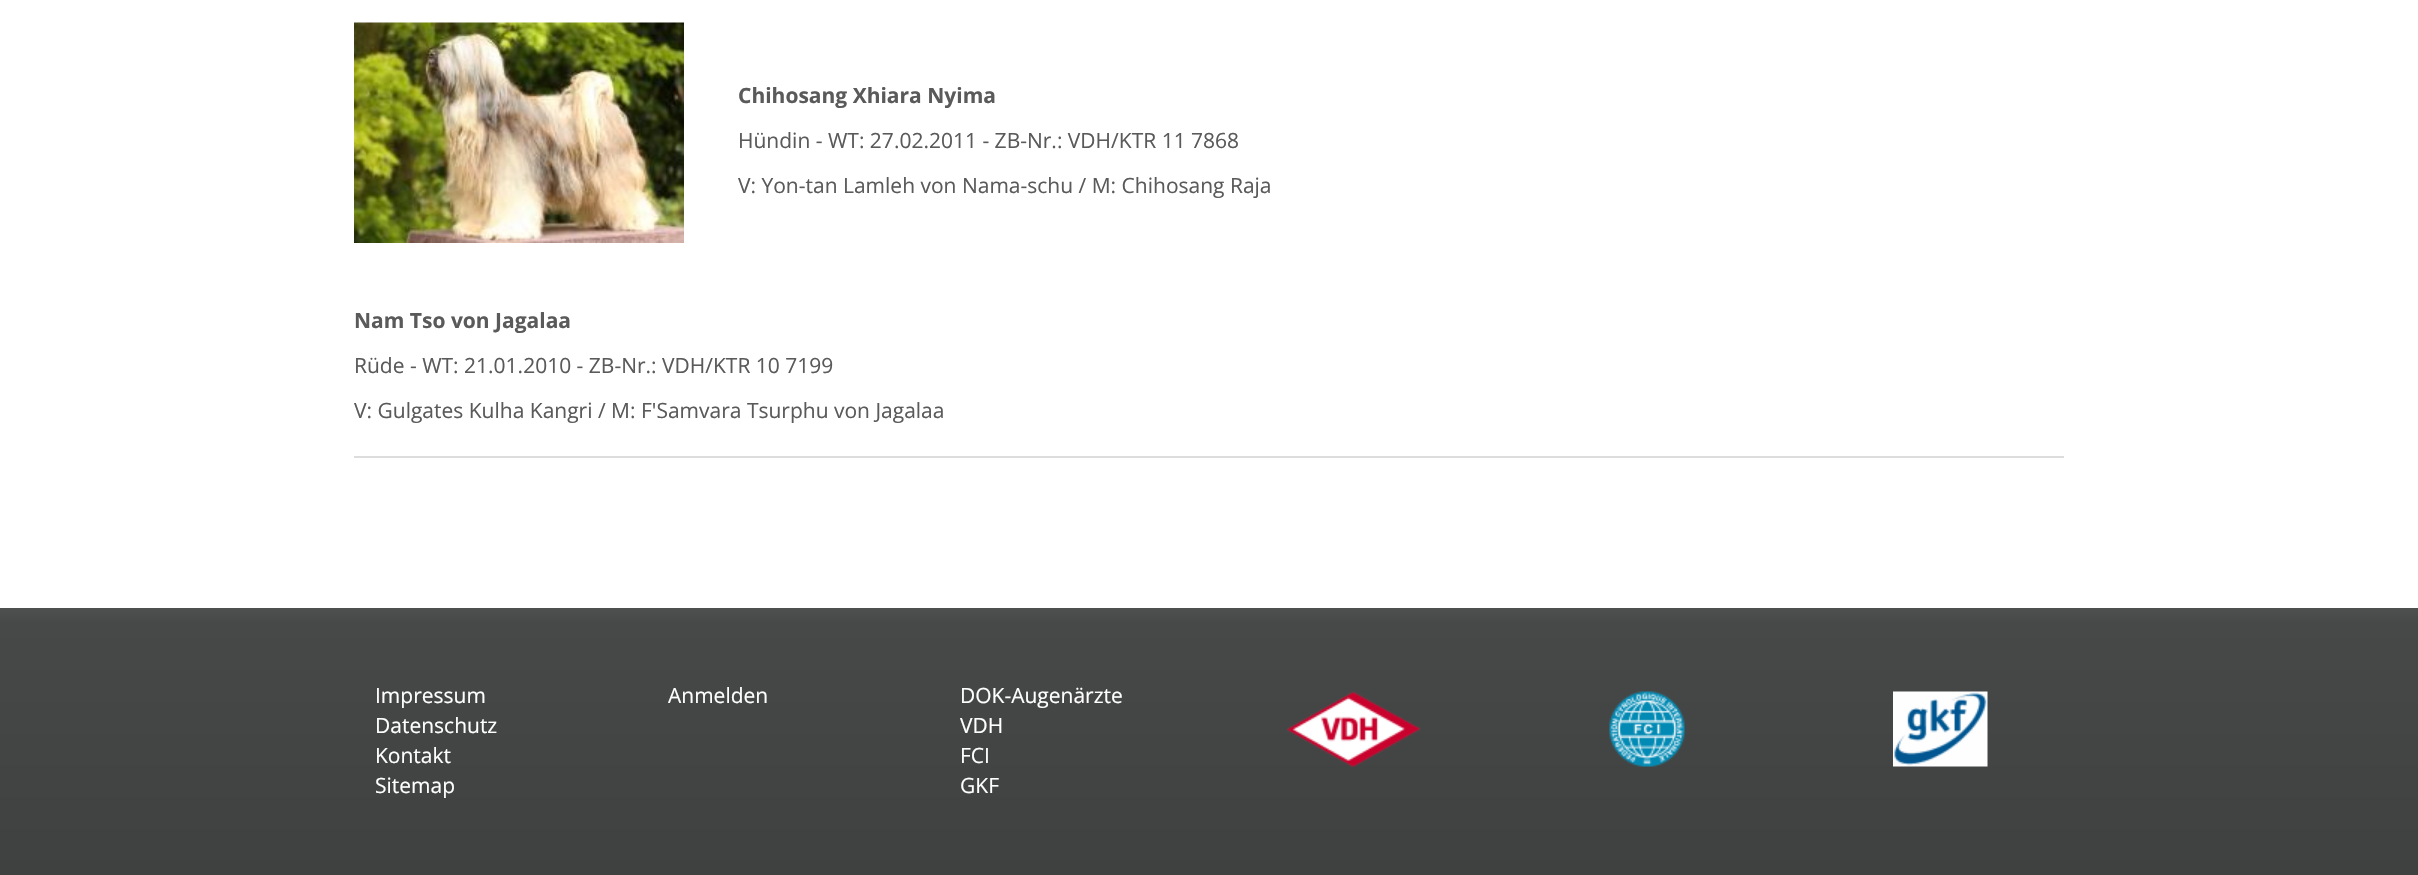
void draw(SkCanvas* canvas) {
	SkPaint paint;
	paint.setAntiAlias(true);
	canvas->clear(0xffffffff);
	canvas->drawImageRect(SkImages::DeferredFromEncodedData(SkData::MakeFromFileName("img1.png")), SkRect::MakeXYWH(354, 22, 330, 221), SkSamplingOptions());
	SkFont f1(fontMgr->matchFamilyStyle("Open Sans", SkFontStyle::Bold()), 21);
	f1.setSubpixel(true);
	paint.setColor(0xff5a5a5a);
	canvas->drawString("Chihosang Xhiara Nyima", 738, 103, f1, paint);
	SkFont f2(fontMgr->matchFamilyStyle("Open Sans", SkFontStyle::Normal()), 21);
	f2.setSubpixel(true);
	canvas->drawString("Hündin - WT: 27.02.2011 - ZB-Nr.: VDH/KTR 11 7868", 738, 148, f2, paint);
	canvas->drawString("V: Yon-tan Lamleh von Nama-schu / M: Chihosang Raja", 738, 193, f2, paint);
	canvas->drawString("Nam Tso von Jagalaa", 354, 328, f1, paint);
	canvas->drawString("Rüde - WT: 21.01.2010 - ZB-Nr.: VDH/KTR 10 7199", 354, 373, f2, paint);
	canvas->drawString("V: Gulgates Kulha Kangri / M: F'Samvara Tsurphu von Jagalaa", 354, 418, f2, paint);
	paint.setColor(0xffdddddd);
	canvas->drawRect(SkRect::MakeXYWH(354, 456, 1710, 2), paint);
	{
		const SkColor colors[] = {0xff4f5151, 0xff474949, 0xff3f4141};
		const float stops[] = {0, 0.06, 1};
		const SkPoint ends[] = {{1209, 607}, {1209, 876}};
		paint.setShader(SkGradientShader::MakeLinear(ends, colors, stops, 3, SkTileMode::kClamp));
		paint.setAlpha(255);
	}
	canvas->drawRect(SkRect::MakeXYWH(0, 608, 2418, 267), paint);
	paint.setShader(nullptr);
	paint.setColor(0xffffffff);
	canvas->drawString("Impressum", 375, 703, f2, paint);
	canvas->drawString("Datenschutz", 375, 733, f2, paint);
	canvas->drawString("Kontakt", 375, 763, f2, paint);
	canvas->drawString("Sitemap", 375, 793, f2, paint);
	canvas->drawString("Anmelden", 668, 703, f2, paint);
	canvas->drawString("DOK-Augenärzte", 960, 703, f2, paint);
	canvas->drawString("VDH", 960, 733, f2, paint);
	canvas->drawString("FCI", 960, 763, f2, paint);
	canvas->drawString("GKF", 960, 793, f2, paint);
	canvas->drawImageRect(SkImages::DeferredFromEncodedData(SkData::MakeFromFileName("img2.png")), SkRect::MakeXYWH(1287, 691, 134, 76), SkSamplingOptions());
	canvas->drawImageRect(SkImages::DeferredFromEncodedData(SkData::MakeFromFileName("img3.png")), SkRect::MakeXYWH(1609, 691, 76, 76), SkSamplingOptions());
	canvas->drawImageRect(SkImages::DeferredFromEncodedData(SkData::MakeFromFileName("img4.png")), SkRect::MakeXYWH(1893, 691, 95, 76), SkSamplingOptions());
}
